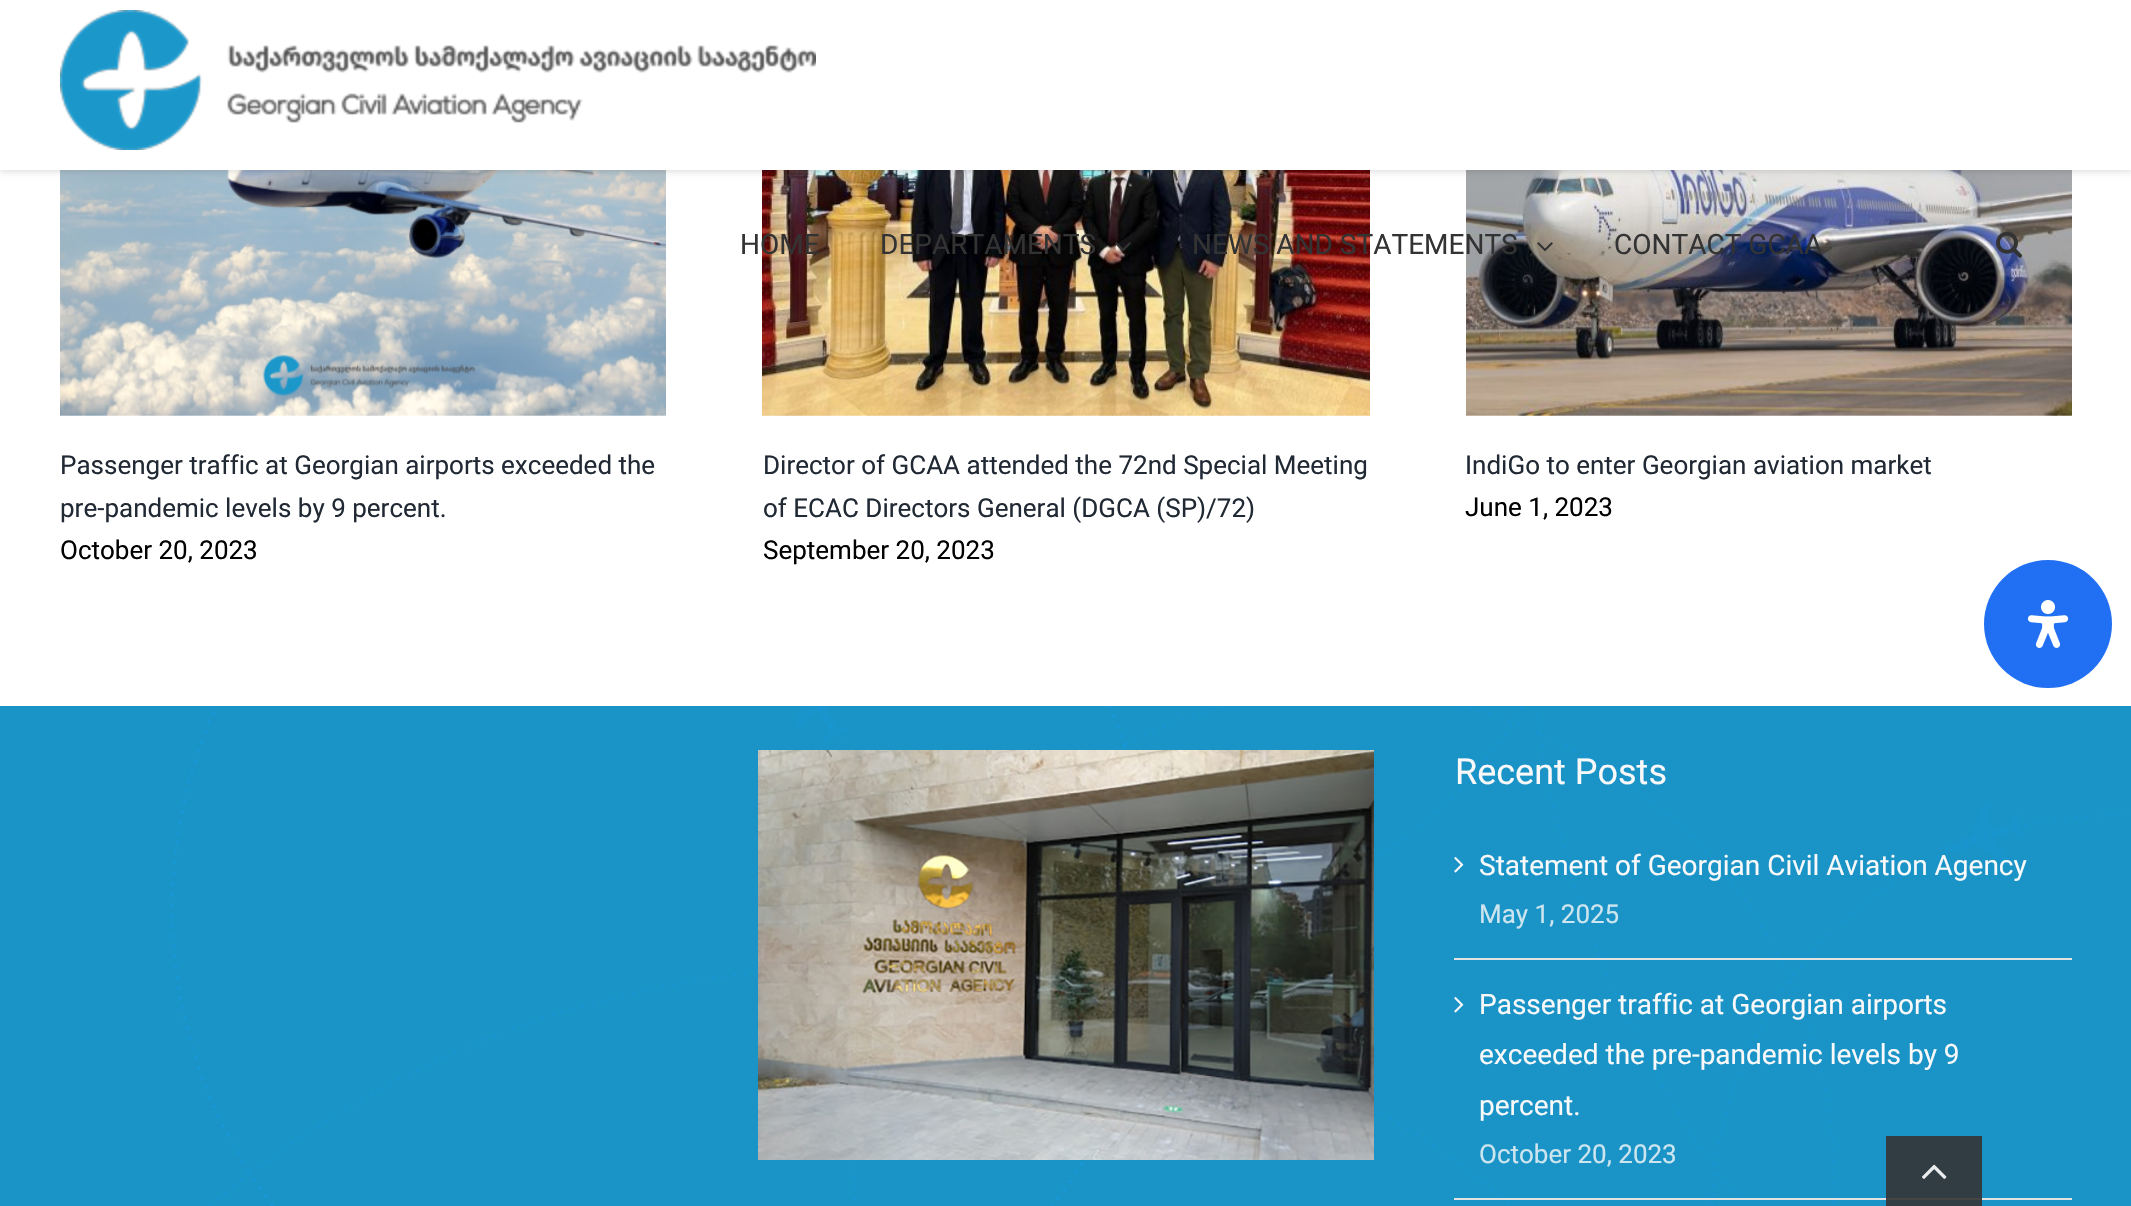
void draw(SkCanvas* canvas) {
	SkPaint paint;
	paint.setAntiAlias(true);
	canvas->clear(0xffffffff);
	canvas->drawImageRect(SkImages::DeferredFromEncodedData(SkData::MakeFromFileName("img5.png")), SkRect::MakeXYWH(60, 170, 606, 246), SkSamplingOptions());
	canvas->drawImageRect(SkImages::DeferredFromEncodedData(SkData::MakeFromFileName("img6.png")), SkRect::MakeXYWH(762, 170, 608, 246), SkSamplingOptions());
	canvas->drawImageRect(SkImages::DeferredFromEncodedData(SkData::MakeFromFileName("img7.png")), SkRect::MakeXYWH(1466, 170, 606, 246), SkSamplingOptions());
	paint.setColor(0x1f000000);
	paint.setMaskFilter(SkMaskFilter::MakeBlur(kNormal_SkBlurStyle, 3));
	canvas->drawRect(SkRect::MakeXYWH(0, 2, 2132, 170), paint);
	paint.setMaskFilter(nullptr);
	paint.setColor(0xffffffff);
	canvas->drawRect(SkRect::MakeXYWH(0, 0, 2131, 170), paint);
	canvas->drawImageRect(SkImages::DeferredFromEncodedData(SkData::MakeFromFileName("img1.png")), SkRect::MakeXYWH(60, 10, 756, 140), SkSamplingOptions());
	SkFont f1(fontMgr->matchFamilyStyle("Roboto", SkFontStyle::Normal()), 28);
	f1.setSubpixel(true);
	paint.setColor(0xff333333);
	canvas->drawString("HOME", 740, 254, f1, paint);
	canvas->drawString("DEPARTAMENTS", 880, 254, f1, paint);
	canvas->drawImageRect(SkImages::DeferredFromEncodedData(SkData::MakeFromFileName("img2.png")), SkRect::MakeXYWH(1115, 242, 16, 9), SkSamplingOptions());
	canvas->drawString("NEWS AND STATEMENTS", 1192, 254, f1, paint);
	canvas->drawImageRect(SkImages::DeferredFromEncodedData(SkData::MakeFromFileName("img3.png")), SkRect::MakeXYWH(1537, 242, 16, 10), SkSamplingOptions());
	canvas->drawString("CONTACT GCAA", 1614, 254, f1, paint);
	canvas->drawImageRect(SkImages::DeferredFromEncodedData(SkData::MakeFromFileName("img4.png")), SkRect::MakeXYWH(1996, 231, 26, 27), SkSamplingOptions());
	SkFont f2(fontMgr->matchFamilyStyle("Roboto", SkFontStyle::Normal()), 26);
	f2.setSubpixel(true);
	paint.setColor(0xff212934);
	canvas->drawString("Passenger traffic at Georgian airports exceeded the", 60, 474, f2, paint);
	canvas->drawString("pre-pandemic levels by 9 percent.", 60, 517, f2, paint);
	paint.setColor(0xff000000);
	canvas->drawString("October 20, 2023", 60, 559, f2, paint);
	paint.setColor(0xff212934);
	canvas->drawString("Director of GCAA attended the 72nd Special Meeting", 763, 474, f2, paint);
	canvas->drawString("of ECAC Directors General (DGCA (SP)/72)", 763, 517, f2, paint);
	paint.setColor(0xff000000);
	canvas->drawString("September 20, 2023", 763, 559, f2, paint);
	paint.setColor(0xff212934);
	canvas->drawString("IndiGo to enter Georgian aviation market", 1465, 474, f2, paint);
	paint.setColor(0xff000000);
	canvas->drawString("June 1, 2023", 1465, 516, f2, paint);
	paint.setColor(0xff1a93c7);
	canvas->drawRect(SkRect::MakeXYWH(0, 706, 2131, 500), paint);
	paint.setColor(0xff313d42);
	canvas->drawRect(SkRect::MakeXYWH(1886, 1136, 96, 70), paint);
	canvas->drawImageRect(SkImages::DeferredFromEncodedData(SkData::MakeFromFileName("img8.png")), SkRect::MakeXYWH(171, 706, 1959, 500), SkSamplingOptions());
	canvas->drawImageRect(SkImages::DeferredFromEncodedData(SkData::MakeFromFileName("img9.png")), SkRect::MakeXYWH(758, 750, 616, 410), SkSamplingOptions());
	SkFont f3(fontMgr->matchFamilyStyle("Roboto", SkFontStyle::Normal()), 36);
	f3.setSubpixel(true);
	paint.setColor(0xfff9f9f9);
	canvas->drawString("Recent Posts", 1455, 784, f3, paint);
	paint.setColor(0xffe2e2e2);
	canvas->drawRect(SkRect::MakeXYWH(1454, 958, 618, 2), paint);
	canvas->drawImageRect(SkImages::DeferredFromEncodedData(SkData::MakeFromFileName("img10.png")), SkRect::MakeXYWH(1454, 857, 10, 16), SkSamplingOptions());
	paint.setColor(0xfff9f9f9);
	canvas->drawString("Statement of Georgian Civil Aviation Agency", 1479, 875, f1, paint);
	paint.setColor(0xffcce5ef);
	canvas->drawString("May 1, 2025", 1479, 923, f2, paint);
	paint.setColor(0xffe2e2e2);
	canvas->drawRect(SkRect::MakeXYWH(1454, 1198, 618, 2), paint);
	paint.setColor(0xff454545);
	canvas->drawRect(SkRect::MakeXYWH(1886, 1198, 96, 2), paint);
	canvas->drawImageRect(SkImages::DeferredFromEncodedData(SkData::MakeFromFileName("img10.png")), SkRect::MakeXYWH(1454, 997, 10, 16), SkSamplingOptions());
	paint.setColor(0xfff9f9f9);
	canvas->drawString("Passenger traffic at Georgian airports", 1479, 1014, f1, paint);
	canvas->drawString("exceeded the pre-pandemic levels by 9", 1479, 1064, f1, paint);
	canvas->drawString("percent.", 1479, 1115, f1, paint);
	paint.setColor(0xffcce5ef);
	canvas->drawString("October 20, 2023", 1479, 1163, f2, paint);
	paint.setColor(0xff216ff3);
	canvas->drawCircle(2048, 624, 64, paint);
	canvas->drawImageRect(SkImages::DeferredFromEncodedData(SkData::MakeFromFileName("img11.png")), SkRect::MakeXYWH(2027, 600, 42, 48), SkSamplingOptions());
	canvas->drawImageRect(SkImages::DeferredFromEncodedData(SkData::MakeFromFileName("img12.png")), SkRect::MakeXYWH(1922, 1164, 25, 15), SkSamplingOptions());
}
